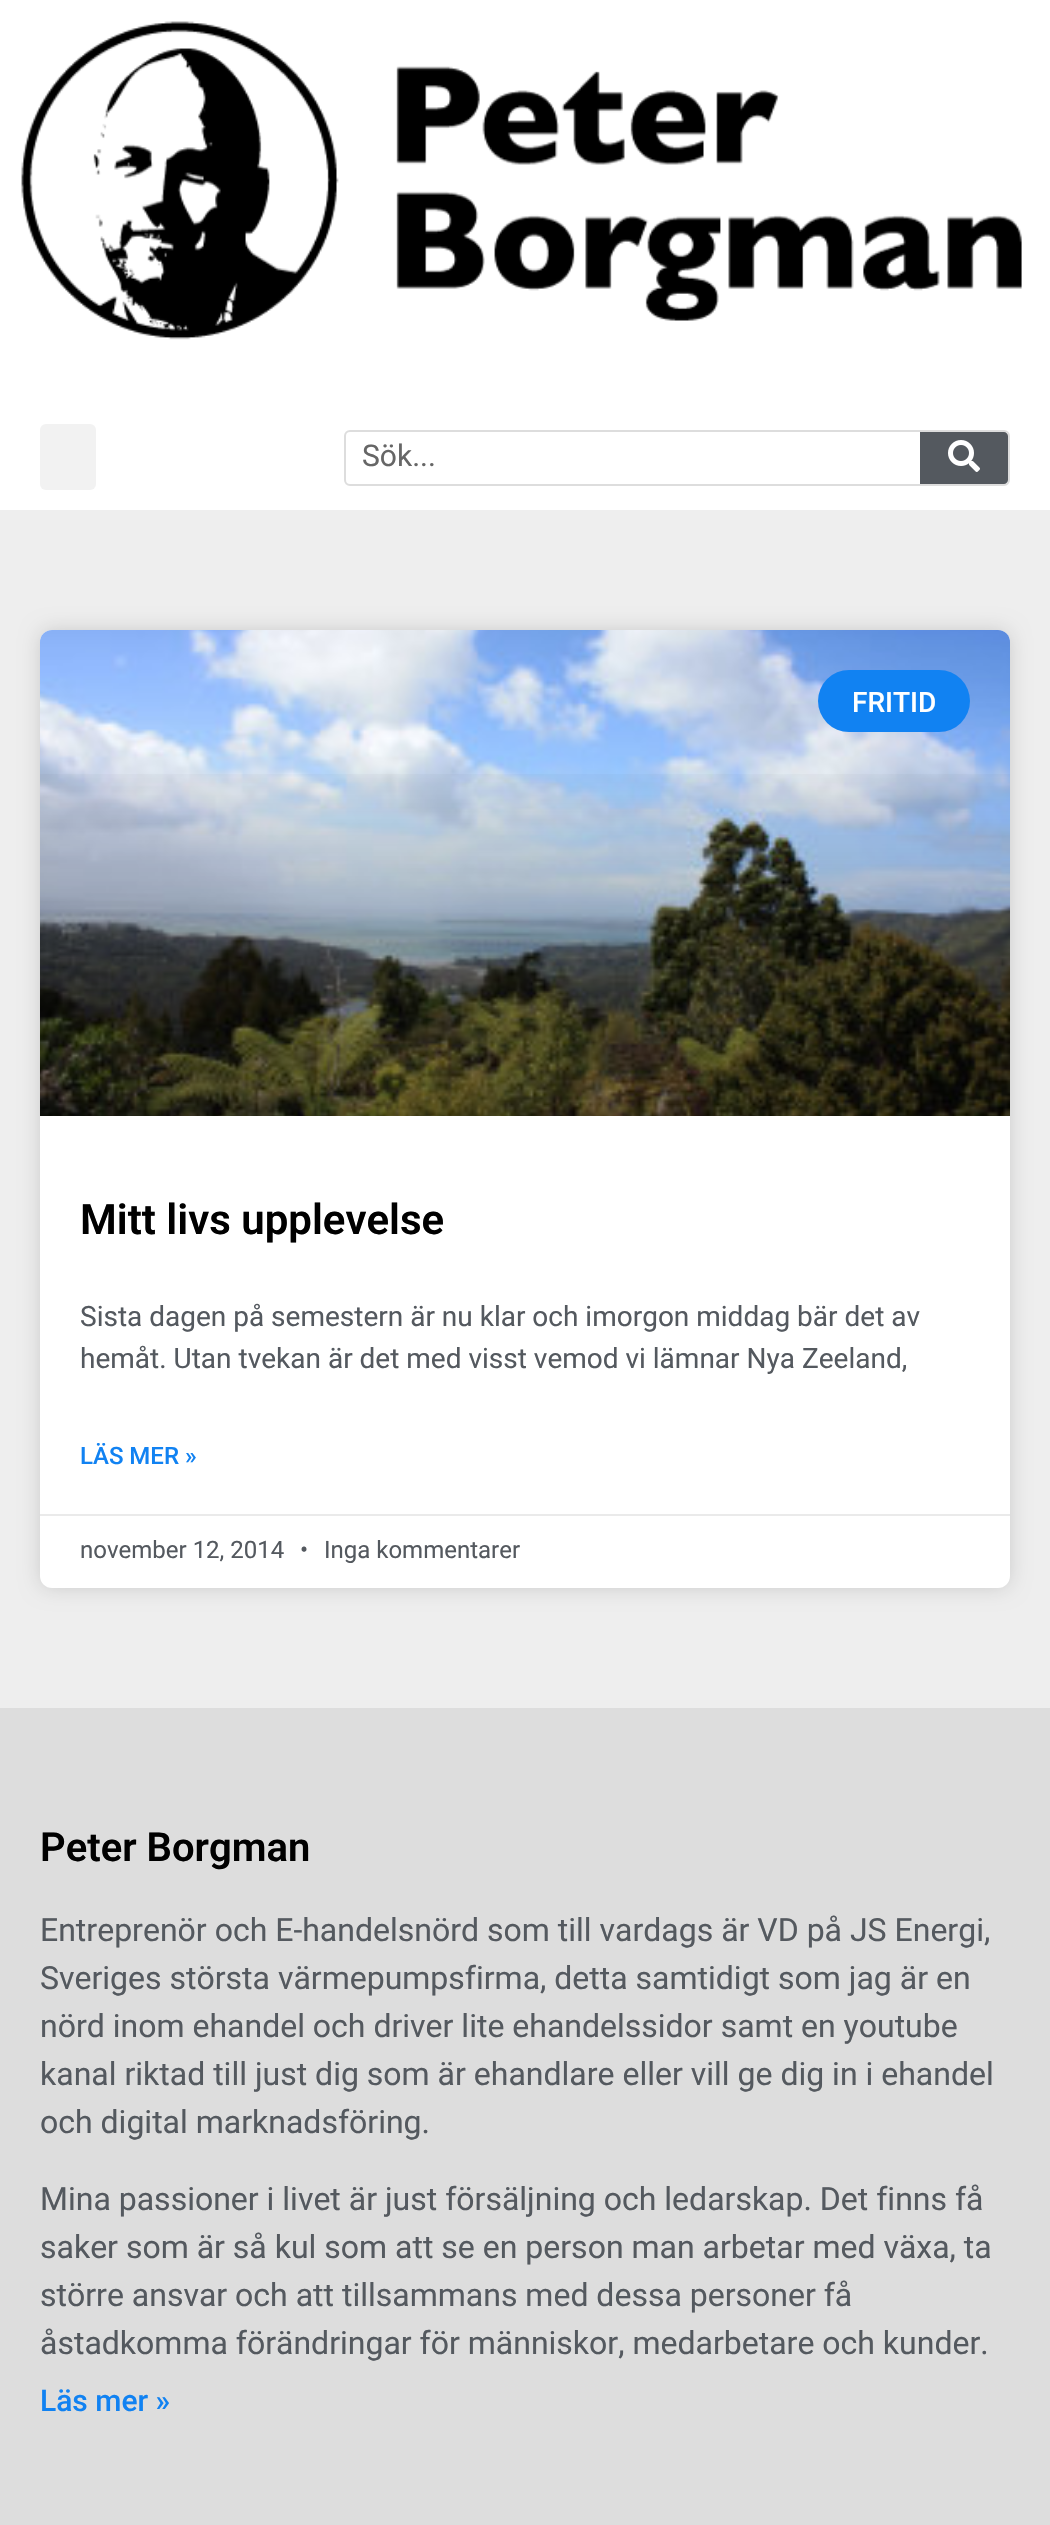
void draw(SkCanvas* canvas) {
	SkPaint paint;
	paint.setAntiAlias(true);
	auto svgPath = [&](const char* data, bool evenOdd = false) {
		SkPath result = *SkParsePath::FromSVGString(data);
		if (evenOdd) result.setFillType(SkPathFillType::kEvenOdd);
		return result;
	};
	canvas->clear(0xffeeeeee);
	paint.setColor(0xffffffff);
	canvas->drawRect(SkRect::MakeXYWH(0, 0, 1050, 510), paint);
	canvas->drawImageRect(SkImages::DeferredFromEncodedData(SkData::MakeFromFileName("img1.png")), SkRect::MakeXYWH(21, 21, 1001, 319), SkSamplingOptions());
	paint.setColor(0xfff2f2f2);
	canvas->drawRoundRect(SkRect::MakeXYWH(40, 424, 56, 66), 6, 6, paint);
	paint.setStroke(true);
	paint.setStrokeWidth(2);
	paint.setColor(0xffdddddd);
	canvas->drawRoundRect(SkRect::MakeXYWH(345, 431, 664, 54), 5, 5, paint);
	SkFont f1(fontMgr->matchFamilyStyle("Roboto", SkFontStyle::Normal()), 30);
	f1.setSubpixel(true);
	paint.setStroke(false);
	paint.setColor(0xff666666);
	canvas->drawString("Sök...", 362, 466, f1, paint);
	paint.setColor(0xff54595f);
	canvas->drawPath(svgPath("M920 432H1004C1006 432 1008 434 1008 436V480C1008 482 1006 484 1004 484H920Z"), paint);
	canvas->drawImageRect(SkImages::DeferredFromEncodedData(SkData::MakeFromFileName("img2.png")), SkRect::MakeXYWH(948, 440, 32, 32), SkSamplingOptions());
	paint.setColor(0x26000000);
	paint.setMaskFilter(SkMaskFilter::MakeBlur(kNormal_SkBlurStyle, 10));
	canvas->drawRoundRect(SkRect::MakeXYWH(40, 630, 970, 958), 12, 12, paint);
	paint.setMaskFilter(nullptr);
	paint.setColor(0xffffffff);
	canvas->drawRoundRect(SkRect::MakeXYWH(40, 630, 970, 958), 12, 12, paint);
	canvas->drawImageRect(SkImages::DeferredFromEncodedData(SkData::MakeFromFileName("img3.png")), SkRect::MakeXYWH(40, 630, 970, 486), SkSamplingOptions());
	{
		const SkColor colors[] = {0x59000000, 0x00000000};
		const float stops[] = {0, 0.75};
		const SkPoint ends[] = {{525, 1116}, {525, 630}};
		paint.setShader(SkGradientShader::MakeLinear(ends, colors, stops, 2, SkTileMode::kClamp));
		paint.setAlpha(255);
	}
	canvas->drawRect(SkRect::MakeXYWH(40, 774, 970, 342), paint);
	paint.setShader(nullptr);
	paint.setColor(0xff1182f2);
	canvas->drawRoundRect(SkRect::MakeXYWH(818, 670, 152, 62), 31, 31, paint);
	SkFont f2(fontMgr->matchFamilyStyle("Roboto", SkFontStyle(500, SkFontStyle::kNormal_Width, SkFontStyle::kUpright_Slant)), 28);
	f2.setSubpixel(true);
	paint.setColor(0xffffffff);
	canvas->drawString("FRITID", 852, 712, f2, paint);
	SkFont f3(fontMgr->matchFamilyStyle("Roboto", SkFontStyle(600, SkFontStyle::kNormal_Width, SkFontStyle::kUpright_Slant)), 42);
	f3.setSubpixel(true);
	paint.setColor(0xff000000);
	canvas->drawString("Mitt livs upplevelse", 80, 1234, f3, paint);
	SkFont f4(fontMgr->matchFamilyStyle("Roboto", SkFontStyle::Normal()), 28);
	f4.setSubpixel(true);
	paint.setColor(0xff54595f);
	canvas->drawString("Sista dagen på semestern är nu klar och imorgon middag bär det av", 80, 1326, f4, paint);
	canvas->drawString("hemåt. Utan tvekan är det med visst vemod vi lämnar Nya Zeeland,", 80, 1368, f4, paint);
	SkFont f5(fontMgr->matchFamilyStyle("Roboto", SkFontStyle(500, SkFontStyle::kNormal_Width, SkFontStyle::kUpright_Slant)), 24);
	f5.setSubpixel(true);
	paint.setColor(0xff1182f2);
	canvas->drawString("LÄS MER »", 80, 1464, f5, paint);
	paint.setColor(0xffeaeaea);
	canvas->drawRect(SkRect::MakeXYWH(40, 1514, 970, 2), paint);
	SkFont f6(fontMgr->matchFamilyStyle("Roboto", SkFontStyle::Normal()), 24);
	f6.setSubpixel(true);
	paint.setColor(0xff54595f);
	canvas->drawString("november 12, 2014", 80, 1558, f6, paint);
	canvas->drawString("•", 300, 1558, f6, paint);
	canvas->drawString("Inga kommentarer", 324, 1558, f6, paint);
	paint.setColor(0xffdddddd);
	canvas->drawRect(SkRect::MakeXYWH(0, 1708, 1050, 817), paint);
	SkFont f7(fontMgr->matchFamilyStyle("Roboto", SkFontStyle(600, SkFontStyle::kNormal_Width, SkFontStyle::kUpright_Slant)), 40);
	f7.setSubpixel(true);
	paint.setColor(0xff000000);
	canvas->drawString("Peter Borgman", 40, 1861, f7, paint);
	SkFont f8(fontMgr->matchFamilyStyle("Roboto", SkFontStyle::Normal()), 32);
	f8.setSubpixel(true);
	paint.setColor(0xff54595f);
	canvas->drawString("Entreprenör och E-handelsnörd som till vardags är VD på JS Energi,", 40, 1941, f8, paint);
	canvas->drawString("Sveriges största värmepumpsfirma, detta samtidigt som jag är en", 40, 1989, f8, paint);
	canvas->drawString("nörd inom ehandel och driver lite ehandelssidor samt en youtube", 40, 2037, f8, paint);
	canvas->drawString("kanal riktad till just dig som är ehandlare eller vill ge dig in i ehandel", 40, 2085, f8, paint);
	canvas->drawString("och digital marknadsföring.", 40, 2133, f8, paint);
	canvas->drawString("Mina passioner i livet är just försäljning och ledarskap. Det finns få", 40, 2210, f8, paint);
	canvas->drawString("saker som är så kul som att se en person man arbetar med växa, ta", 40, 2258, f8, paint);
	canvas->drawString("större ansvar och att tillsammans med dessa personer få", 40, 2306, f8, paint);
	canvas->drawString("åstadkomma förändringar för människor, medarbetare och kunder.", 40, 2354, f8, paint);
	SkFont f9(fontMgr->matchFamilyStyle("Roboto", SkFontStyle(500, SkFontStyle::kNormal_Width, SkFontStyle::kUpright_Slant)), 30);
	f9.setSubpixel(true);
	paint.setColor(0xff1182f2);
	canvas->drawString("Läs mer »", 40, 2411, f9, paint);
}
